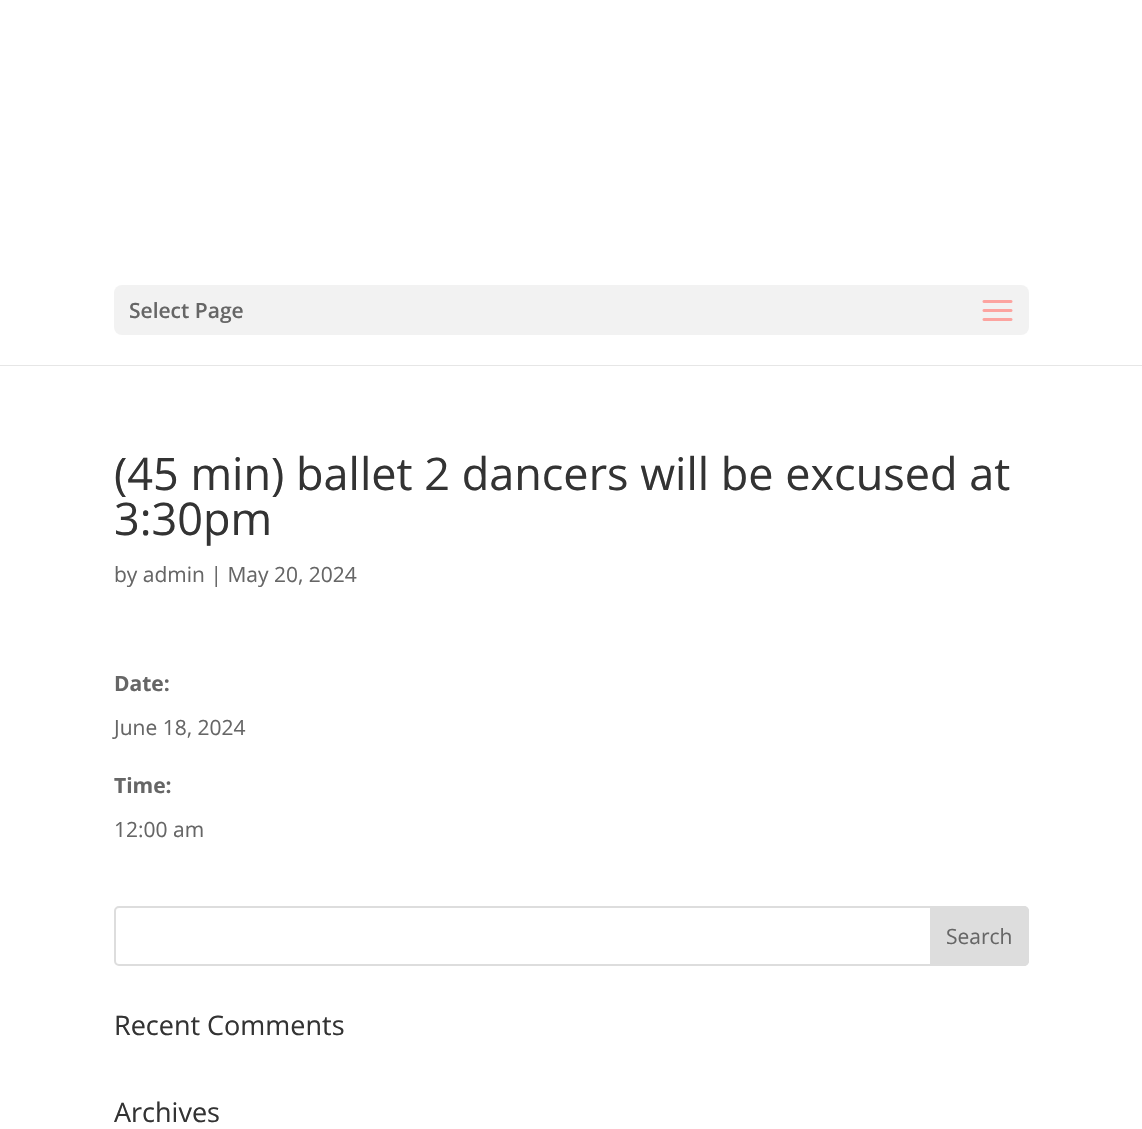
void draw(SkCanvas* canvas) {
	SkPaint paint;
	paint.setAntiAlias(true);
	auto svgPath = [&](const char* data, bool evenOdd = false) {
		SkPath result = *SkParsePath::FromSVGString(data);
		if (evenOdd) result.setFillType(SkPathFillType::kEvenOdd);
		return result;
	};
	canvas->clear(0xffffffff);
	paint.setColor(0xffe6e6e6);
	canvas->drawRect(SkRect::MakeXYWH(0, 365, 1142, 1), paint);
	paint.setColor(0xfff2f2f2);
	canvas->drawRoundRect(SkRect::MakeXYWH(114, 285, 915, 50), 8, 8, paint);
	SkFont f1(fontMgr->matchFamilyStyle("Open Sans", SkFontStyle(600, SkFontStyle::kNormal_Width, SkFontStyle::kUpright_Slant)), 21);
	f1.setSubpixel(true);
	paint.setColor(0xff666666);
	canvas->drawString("Select Page", 129, 318, f1, paint);
	canvas->drawImageRect(SkImages::DeferredFromEncodedData(SkData::MakeFromFileName("img1.png")), SkRect::MakeXYWH(982, 300, 31, 21), SkSamplingOptions());
	SkFont f2(fontMgr->matchFamilyStyle("Open Sans", SkFontStyle::Normal()), 45);
	f2.setSubpixel(true);
	paint.setColor(0xff333333);
	canvas->drawString("(45 min) ballet 2 dancers will be excused at", 114, 490, f2, paint);
	canvas->drawString("3:30pm", 114, 535, f2, paint);
	SkFont f3(fontMgr->matchFamilyStyle("Open Sans", SkFontStyle::Normal()), 21);
	f3.setSubpixel(true);
	paint.setColor(0xff666666);
	canvas->drawString("by admin | May 20, 2024", 114, 582, f3, paint);
	SkFont f4(fontMgr->matchFamilyStyle("Open Sans", SkFontStyle::Bold()), 21);
	f4.setSubpixel(true);
	canvas->drawString("Date:", 114, 691, f4, paint);
	canvas->drawString("June 18, 2024", 114, 735, f3, paint);
	canvas->drawString("Time:", 114, 793, f4, paint);
	canvas->drawString("12:00 am", 114, 837, f3, paint);
	paint.setStroke(true);
	paint.setStrokeWidth(2);
	paint.setColor(0xffdddddd);
	canvas->drawRoundRect(SkRect::MakeXYWH(115, 907, 913, 58), 4, 4, paint);
	paint.setStroke(false);
	canvas->drawPath(svgPath("M931 907H1024C1026 907 1028 909 1028 911V961C1028 963 1026 965 1024 965H931Z"), paint);
	paint.setStroke(true);
	canvas->drawPath(svgPath("M931 907H1024C1026 907 1028 909 1028 911V961C1028 963 1026 965 1024 965H931Z"), paint);
	paint.setStroke(false);
	paint.setColor(0xff666666);
	canvas->drawString("Search", 946, 944, f3, paint);
	SkFont f5(fontMgr->matchFamilyStyle("Open Sans", SkFontStyle::Normal()), 27);
	f5.setSubpixel(true);
	paint.setColor(0xff333333);
	canvas->drawString("Recent Comments", 114, 1035, f5, paint);
	canvas->drawString("Archives", 114, 1122, f5, paint);
}
